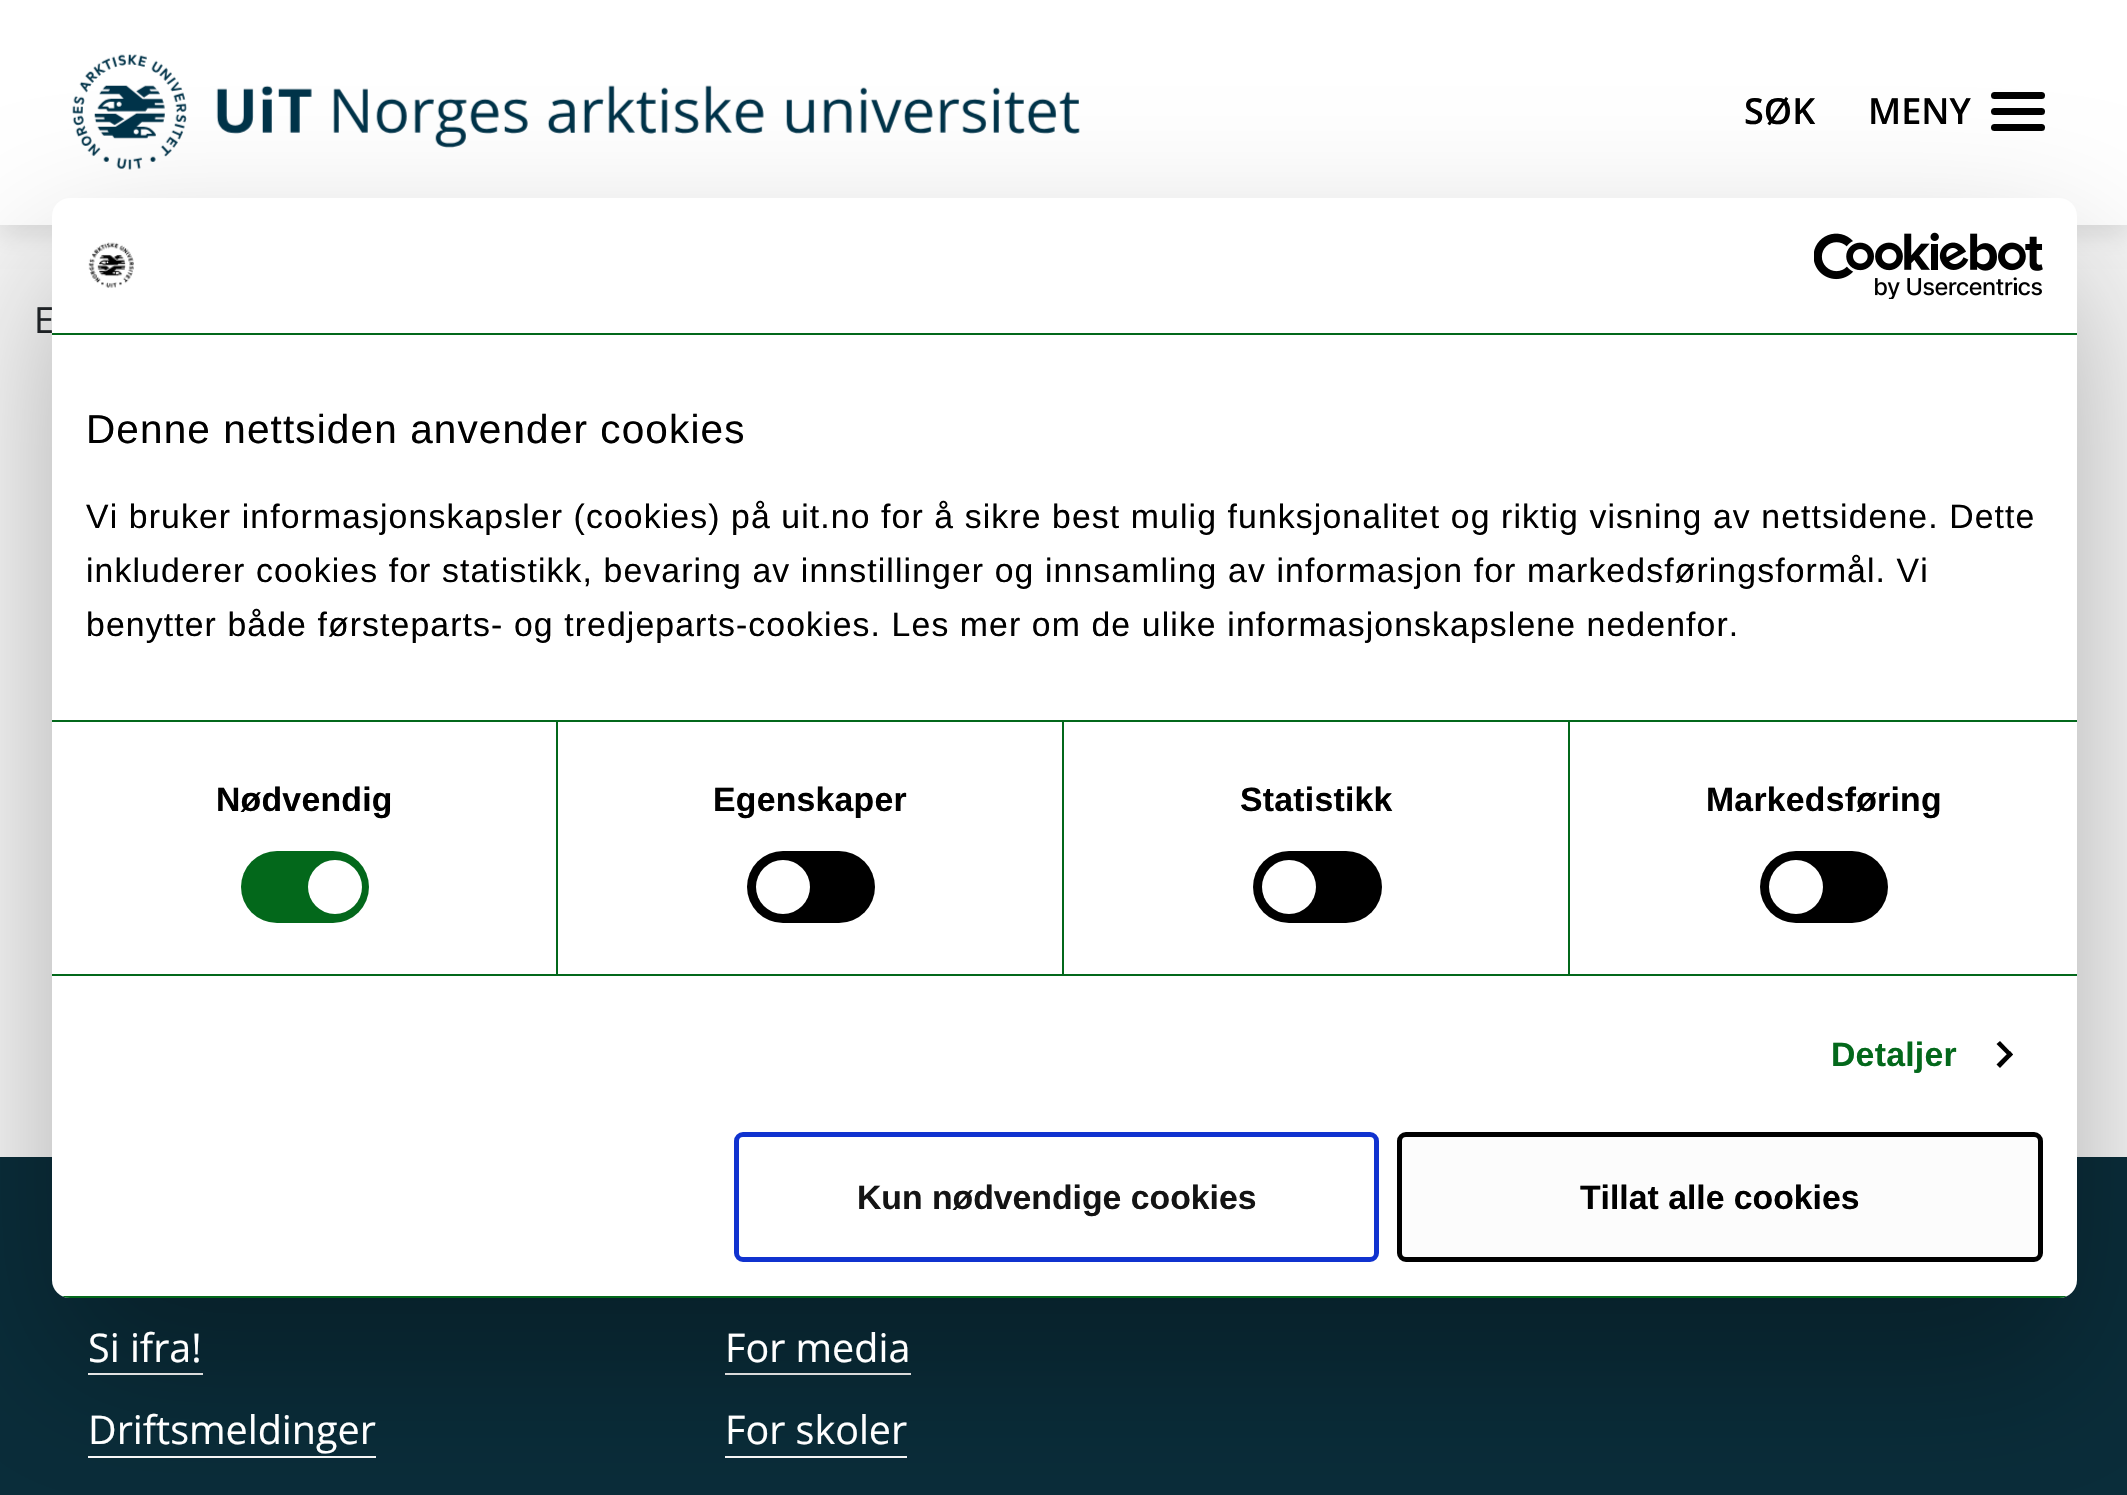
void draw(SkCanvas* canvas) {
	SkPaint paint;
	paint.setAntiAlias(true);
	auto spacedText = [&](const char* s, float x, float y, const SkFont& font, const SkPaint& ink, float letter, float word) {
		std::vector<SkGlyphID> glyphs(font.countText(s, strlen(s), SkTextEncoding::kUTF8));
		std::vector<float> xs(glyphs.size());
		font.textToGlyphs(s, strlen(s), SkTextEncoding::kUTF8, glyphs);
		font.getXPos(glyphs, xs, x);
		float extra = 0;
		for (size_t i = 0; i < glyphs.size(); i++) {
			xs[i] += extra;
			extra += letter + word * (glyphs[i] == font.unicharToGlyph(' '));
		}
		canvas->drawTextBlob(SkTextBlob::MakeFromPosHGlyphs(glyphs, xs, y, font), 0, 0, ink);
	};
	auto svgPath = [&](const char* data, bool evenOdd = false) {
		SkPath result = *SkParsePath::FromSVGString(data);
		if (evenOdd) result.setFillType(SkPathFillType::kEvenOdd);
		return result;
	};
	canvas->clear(0xfff7f7f7);
	paint.setColor(0x1a000000);
	paint.setMaskFilter(SkMaskFilter::MakeBlur(kNormal_SkBlurStyle, 11));
	canvas->drawRect(SkRect::MakeXYWH(0, 11, 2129, 225), paint);
	paint.setMaskFilter(nullptr);
	paint.setColor(0xffffffff);
	canvas->drawRect(SkRect::MakeXYWH(0, 0, 2127, 225), paint);
	canvas->drawImageRect(SkImages::DeferredFromEncodedData(SkData::MakeFromFileName("img1.png")), SkRect::MakeXYWH(72, 54, 1008, 116), SkSamplingOptions());
	SkFont f1(fontMgr->matchFamilyStyle("Open Sans", SkFontStyle(600, SkFontStyle::kNormal_Width, SkFontStyle::kUpright_Slant)), 36);
	f1.setSubpixel(true);
	paint.setColor(0xff000000);
	canvas->drawString("SØK", 1744, 124, f1, paint);
	canvas->drawRoundRect(SkRect::MakeXYWH(1991, 92, 54, 7), 3.5, 3.5, paint);
	canvas->drawString("MENY", 1868, 124, f1, paint);
	canvas->drawRoundRect(SkRect::MakeXYWH(1991, 108, 54, 7), 3.5, 3.5, paint);
	canvas->drawRoundRect(SkRect::MakeXYWH(1991, 124, 54, 7), 3.5, 3.5, paint);
	SkFont f2(fontMgr->matchFamilyStyle("Open Sans", SkFontStyle::Normal()), 36);
	f2.setSubpixel(true);
	paint.setColor(0xff212529);
	canvas->drawString("E", 34, 333, f2, paint);
	paint.setColor(0xff0a2d3a);
	canvas->drawRect(SkRect::MakeXYWH(0, 1157, 2127, 338), paint);
	paint.setColor(0xffffffff);
	canvas->drawRect(SkRect::MakeXYWH(88, 1373, 115, 2), paint);
	canvas->drawRect(SkRect::MakeXYWH(88, 1456, 288, 2), paint);
	canvas->drawRect(SkRect::MakeXYWH(725, 1373, 186, 2), paint);
	canvas->drawRect(SkRect::MakeXYWH(725, 1456, 182, 2), paint);
	paint.setColor(0x4d000000);
	paint.setMaskFilter(SkMaskFilter::MakeBlur(kNormal_SkBlurStyle, 76.5));
	canvas->drawRoundRect(SkRect::MakeXYWH(52, 270, 2025, 1100), 18, 18, paint);
	paint.setMaskFilter(nullptr);
	paint.setColor(0xffffffff);
	canvas->drawRoundRect(SkRect::MakeXYWH(52, 198, 2025, 1100), 18, 18, paint);
	paint.setColor(0xff03681b);
	canvas->drawRect(SkRect::MakeXYWH(52, 333, 2025, 2), paint);
	canvas->drawImageRect(SkImages::DeferredFromEncodedData(SkData::MakeFromFileName("img2.png")), SkRect::MakeXYWH(88, 242, 46, 46), SkSamplingOptions());
	canvas->drawImageRect(SkImages::DeferredFromEncodedData(SkData::MakeFromFileName("img3.png")), SkRect::MakeXYWH(1814, 232, 229, 67), SkSamplingOptions());
	canvas->drawRect(SkRect::MakeXYWH(52, 720, 2025, 2), paint);
	SkFont f3(fontMgr->matchFamilyStyle("Liberation Sans", SkFontStyle::Normal()), 40.5);
	f3.setSubpixel(true);
	paint.setColor(0xff000000);
	spacedText("Denne nettsiden anvender cookies", 86, 443, f3, paint, 1.12, 0);
	SkFont f4(fontMgr->matchFamilyStyle("Liberation Sans", SkFontStyle::Normal()), 33.75);
	f4.setSubpixel(true);
	spacedText("Vi bruker informasjonskapsler (cookies) på uit.no for å sikre best mulig funksjonalitet og riktig visning av nettsidene. Dette", 86, 528, f4, paint, 1.12, 0);
	spacedText("inkluderer cookies for statistikk, bevaring av innstillinger og innsamling av informasjon for markedsføringsformål. Vi", 86, 582, f4, paint, 1.12, 0);
	spacedText("benytter både førsteparts- og tredjeparts-cookies. Les mer om de ulike informasjonskapslene nedenfor.", 86, 636, f4, paint, 1.12, 0);
	paint.setColor(0xff03681b);
	canvas->drawRect(SkRect::MakeXYWH(52, 974, 2025, 2), paint);
	canvas->drawRect(SkRect::MakeXYWH(556, 722, 2, 252), paint);
	SkFont f5(fontMgr->matchFamilyStyle("Liberation Sans", SkFontStyle::Bold()), 33.75);
	f5.setSubpixel(true);
	paint.setColor(0xff000000);
	spacedText("Nødvendig", 216, 811, f5, paint, 0.25, 0);
	paint.setColor(0xff03681b);
	canvas->drawRoundRect(SkRect::MakeXYWH(241, 851, 128, 72), 36, 36, paint);
	paint.setColor(0xffffffff);
	canvas->drawCircle(335, 887, 27, paint);
	paint.setColor(0xff03681b);
	canvas->drawRect(SkRect::MakeXYWH(1062, 722, 2, 252), paint);
	paint.setColor(0xff000000);
	spacedText("Egenskaper", 713, 811, f5, paint, 0.25, 0);
	canvas->drawRoundRect(SkRect::MakeXYWH(747, 851, 128, 72), 36, 36, paint);
	paint.setColor(0xffffffff);
	canvas->drawCircle(783, 887, 27, paint);
	paint.setColor(0xff03681b);
	canvas->drawRect(SkRect::MakeXYWH(1568, 722, 2, 252), paint);
	paint.setColor(0xff000000);
	spacedText("Statistikk", 1240, 811, f5, paint, 0.25, 0);
	canvas->drawRoundRect(SkRect::MakeXYWH(1253, 851, 129, 72), 36, 36, paint);
	paint.setColor(0xffffffff);
	canvas->drawCircle(1289, 887, 27, paint);
	paint.setColor(0xff000000);
	spacedText("Markedsføring", 1706, 811, f5, paint, 0.25, 0);
	canvas->drawRoundRect(SkRect::MakeXYWH(1760, 851, 128, 72), 36, 36, paint);
	paint.setColor(0xffffffff);
	canvas->drawCircle(1796, 887, 27, paint);
	paint.setColor(0xff03681b);
	spacedText("Detaljer", 1831, 1066, f5, paint, 0.25, 0);
	paint.setColor(0xff000000);
	canvas->drawPath(svgPath("M2000 1041L2013 1054.5L2010 1057.5L1996.5 1044Z"), paint);
	canvas->drawPath(svgPath("M2010 1051L2013 1054.5L2000 1068L1996.5 1064.5Z"), paint);
	canvas->save();
	canvas->clipPath(svgPath("M70 198H2059C2069 198 2077 206 2077 216V1280C2077 1290 2069 1298 2059 1298H70C60 1298 52 1290 52 1280V216C52 206 60 198 70 198Z"), true);
	paint.setColor(0xff03681b);
	canvas->drawRect(SkRect::MakeXYWH(62, 1296, 2005, 2), paint);
	canvas->restore();
	paint.setStroke(true);
	paint.setStrokeWidth(5);
	paint.setColor(0xff1032cf);
	canvas->drawRoundRect(SkRect::MakeXYWH(736.5, 1134.5, 640, 125), 6.5, 6.5, paint);
	paint.setStroke(false);
	paint.setColor(0xff141414);
	canvas->drawString("Kun nødvendige cookies", 857, 1209, f5, paint);
	paint.setColor(0xfffcfcfc);
	canvas->drawRoundRect(SkRect::MakeXYWH(1399.5, 1134.5, 641, 125), 6.5, 6.5, paint);
	paint.setStroke(true);
	paint.setColor(0xff000000);
	canvas->drawRoundRect(SkRect::MakeXYWH(1399.5, 1134.5, 641, 125), 6.5, 6.5, paint);
	paint.setStroke(false);
	canvas->drawString("Tillat alle cookies", 1580, 1209, f5, paint);
	SkFont f6(fontMgr->matchFamilyStyle("Open Sans", SkFontStyle::Normal()), 39.5);
	f6.setSubpixel(true);
	paint.setColor(0xffffffff);
	canvas->drawString("Si ifra!", 88, 1362, f6, paint);
	canvas->drawString("Driftsmeldinger", 88, 1444, f6, paint);
	canvas->drawString("For media", 725, 1362, f6, paint);
	canvas->drawString("For skoler", 725, 1444, f6, paint);
}
